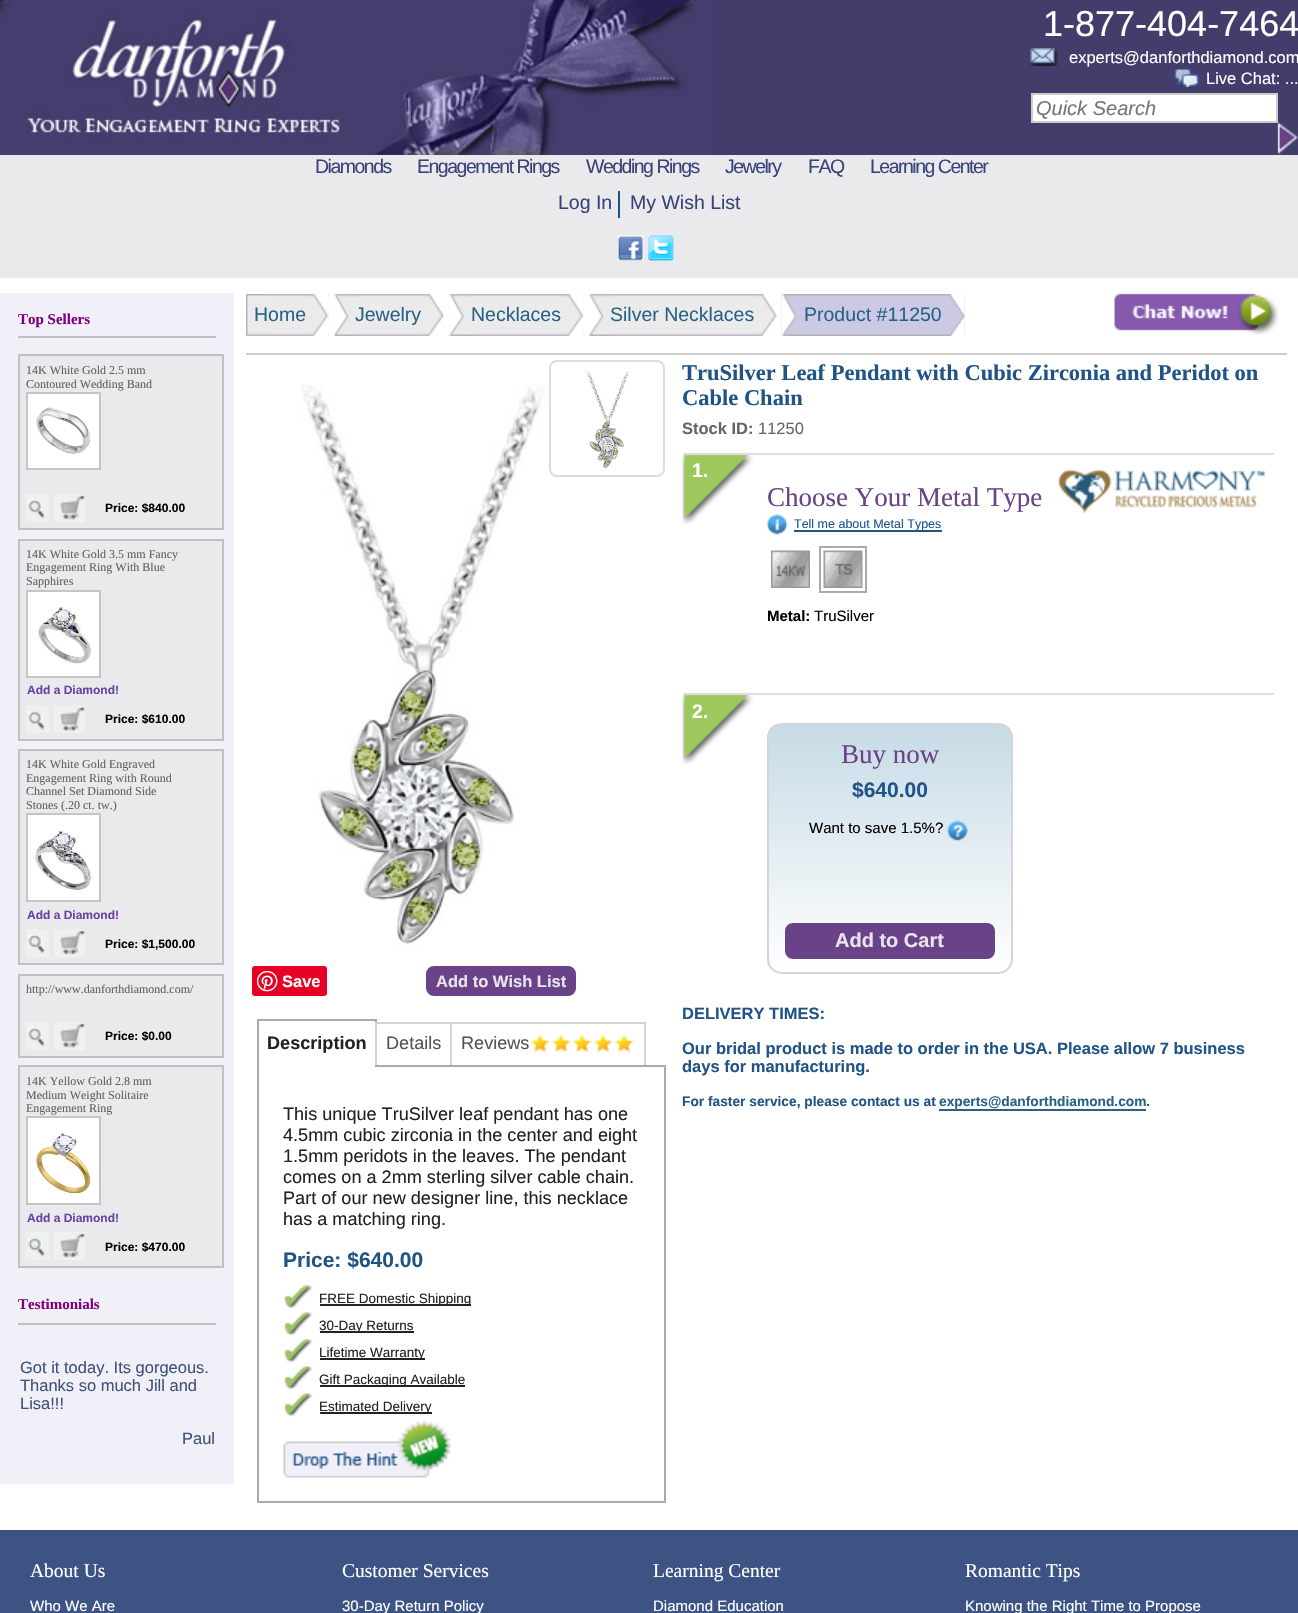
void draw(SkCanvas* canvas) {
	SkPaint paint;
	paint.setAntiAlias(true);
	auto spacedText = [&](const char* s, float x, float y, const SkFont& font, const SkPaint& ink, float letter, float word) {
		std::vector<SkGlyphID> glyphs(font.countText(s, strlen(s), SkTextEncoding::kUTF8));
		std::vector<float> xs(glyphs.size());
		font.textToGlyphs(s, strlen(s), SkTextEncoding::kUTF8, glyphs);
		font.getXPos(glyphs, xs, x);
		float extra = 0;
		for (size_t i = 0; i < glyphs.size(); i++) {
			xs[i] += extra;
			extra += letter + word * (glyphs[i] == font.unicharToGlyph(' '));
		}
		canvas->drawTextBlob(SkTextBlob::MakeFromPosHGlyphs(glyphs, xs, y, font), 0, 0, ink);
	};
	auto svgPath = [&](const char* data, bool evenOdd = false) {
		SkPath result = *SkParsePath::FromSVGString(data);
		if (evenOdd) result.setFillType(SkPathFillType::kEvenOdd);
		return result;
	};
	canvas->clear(0xffffffff);
	paint.setColor(0xff433d6c);
	canvas->drawRect(SkRect::MakeXYWH(0, 0, 1298, 155), paint);
	canvas->drawImageRect(SkImages::DeferredFromEncodedData(SkData::MakeFromFileName("img1.png")), SkRect::MakeXYWH(0, 0, 714, 155), SkSamplingOptions());
	canvas->drawImageRect(SkImages::DeferredFromEncodedData(SkData::MakeFromFileName("img2.png")), SkRect::MakeXYWH(27, 11, 687, 144), SkSamplingOptions());
	SkFont f1(fontMgr->matchFamilyStyle("Liberation Sans", SkFontStyle::Normal()), 36);
	f1.setSubpixel(true);
	paint.setColor(0xffffffff);
	canvas->drawString("1-877-404-7464", 1043, 36, f1, paint);
	canvas->drawImageRect(SkImages::DeferredFromEncodedData(SkData::MakeFromFileName("img3.png")), SkRect::MakeXYWH(1030, 48, 28, 18), SkSamplingOptions());
	SkFont f2(fontMgr->matchFamilyStyle("Liberation Sans", SkFontStyle::Normal()), 16.5);
	f2.setSubpixel(true);
	canvas->drawString("experts@danforthdiamond.com", 1069, 63, f2, paint);
	canvas->drawImageRect(SkImages::DeferredFromEncodedData(SkData::MakeFromFileName("img4.png")), SkRect::MakeXYWH(1171, 69, 31, 18), SkSamplingOptions());
	canvas->drawString("Live Chat: ...", 1206, 84, f2, paint);
	canvas->drawRect(SkRect::MakeXYWH(1032, 94, 245, 28), paint);
	paint.setStroke(true);
	paint.setStrokeWidth(2);
	paint.setColor(0xffcccccc);
	canvas->drawRect(SkRect::MakeXYWH(1032, 94, 245, 28), paint);
	SkFont f3(fontMgr->matchFamilyStyle("Liberation Sans", SkFontStyle::Italic()), 20);
	f3.setSubpixel(true);
	paint.setStroke(false);
	paint.setColor(0xff757575);
	canvas->drawString("Quick Search", 1036, 115, f3, paint);
	canvas->drawImageRect(SkImages::DeferredFromEncodedData(SkData::MakeFromFileName("img5.png")), SkRect::MakeXYWH(1277, 122, 21, 33), SkSamplingOptions());
	paint.setColor(0xffeaeaec);
	canvas->drawRect(SkRect::MakeXYWH(0, 155, 1298, 123), paint);
	SkFont f4(fontMgr->matchFamilyStyle("Liberation Sans", SkFontStyle::Normal()), 19.5);
	f4.setSubpixel(true);
	paint.setColor(0xff384379);
	spacedText("Diamonds", 315, 173, f4, paint, -1.5, 0);
	spacedText("Engagement Rings", 417, 173, f4, paint, -1.5, 0);
	spacedText("Wedding Rings", 586, 173, f4, paint, -1.5, 0);
	spacedText("Jewelry", 725, 173, f4, paint, -1.5, 0);
	spacedText("FAQ", 808, 173, f4, paint, -1.5, 0);
	spacedText("Learning Center", 870, 173, f4, paint, -1.5, 0);
	paint.setColor(0xff14558d);
	canvas->drawRect(SkRect::MakeXYWH(618, 191, 2, 27), paint);
	paint.setColor(0xff384379);
	canvas->drawString("Log In", 558, 209, f4, paint);
	canvas->drawString("My Wish List", 630, 209, f4, paint);
	canvas->drawImageRect(SkImages::DeferredFromEncodedData(SkData::MakeFromFileName("img6.png")), SkRect::MakeXYWH(618, 235, 26, 26), SkSamplingOptions());
	canvas->drawImageRect(SkImages::DeferredFromEncodedData(SkData::MakeFromFileName("img7.png")), SkRect::MakeXYWH(648, 235, 26, 26), SkSamplingOptions());
	paint.setColor(0xfff1f0f8);
	canvas->drawRect(SkRect::MakeXYWH(0, 293, 234, 1191), paint);
	paint.setColor(0xffc1c1c1);
	canvas->drawRect(SkRect::MakeXYWH(18, 336, 198, 2), paint);
	SkFont f5(fontMgr->matchFamilyStyle("Liberation Serif", SkFontStyle::Bold()), 15);
	f5.setSubpixel(true);
	paint.setColor(0xff800080);
	canvas->drawString("Top Sellers", 18, 324, f5, paint);
	paint.setColor(0xffeaeaec);
	canvas->drawRect(SkRect::MakeXYWH(19, 355, 204, 174), paint);
	paint.setStroke(true);
	paint.setColor(0xffc1c1c1);
	canvas->drawRect(SkRect::MakeXYWH(19, 355, 204, 174), paint);
	SkFont f6(fontMgr->matchFamilyStyle("Liberation Serif", SkFontStyle::Normal()), 12);
	f6.setSubpixel(true);
	paint.setStroke(false);
	paint.setColor(0xff606060);
	canvas->drawString("14K White Gold 2.5 mm", 26, 374, f6, paint);
	canvas->drawString("Contoured Wedding Band", 26, 388, f6, paint);
	paint.setColor(0xffffffff);
	canvas->drawRect(SkRect::MakeXYWH(27, 393, 73, 76), paint);
	paint.setStroke(true);
	paint.setColor(0xffc5c5c5);
	canvas->drawRect(SkRect::MakeXYWH(27, 393, 73, 76), paint);
	canvas->drawImageRect(SkImages::DeferredFromEncodedData(SkData::MakeFromFileName("img8.png")), SkRect::MakeXYWH(36, 407, 55, 47), SkSamplingOptions());
	canvas->drawImageRect(SkImages::DeferredFromEncodedData(SkData::MakeFromFileName("img9.png")), SkRect::MakeXYWH(26, 494, 23, 28), SkSamplingOptions());
	canvas->drawImageRect(SkImages::DeferredFromEncodedData(SkData::MakeFromFileName("img10.png")), SkRect::MakeXYWH(54, 494, 31, 28), SkSamplingOptions());
	SkFont f7(fontMgr->matchFamilyStyle("Liberation Sans", SkFontStyle::Bold()), 12);
	f7.setSubpixel(true);
	paint.setStroke(false);
	paint.setColor(0xff000000);
	canvas->drawString("Price: $840.00", 105, 512, f7, paint);
	paint.setColor(0xffeaeaec);
	canvas->drawRect(SkRect::MakeXYWH(19, 540, 204, 200), paint);
	paint.setStroke(true);
	paint.setColor(0xffc1c1c1);
	canvas->drawRect(SkRect::MakeXYWH(19, 540, 204, 200), paint);
	paint.setStroke(false);
	paint.setColor(0xff606060);
	canvas->drawString("14K White Gold 3.5 mm Fancy", 26, 558, f6, paint);
	canvas->drawString("Engagement Ring With Blue", 26, 571, f6, paint);
	canvas->drawString("Sapphires", 26, 585, f6, paint);
	paint.setColor(0xffffffff);
	canvas->drawRect(SkRect::MakeXYWH(27, 591, 73, 86), paint);
	paint.setStroke(true);
	paint.setColor(0xffc5c5c5);
	canvas->drawRect(SkRect::MakeXYWH(27, 591, 73, 86), paint);
	canvas->drawImageRect(SkImages::DeferredFromEncodedData(SkData::MakeFromFileName("img11.png")), SkRect::MakeXYWH(38, 607, 54, 57), SkSamplingOptions());
	paint.setStroke(false);
	paint.setColor(0xff6842a4);
	canvas->drawString("Add a Diamond!", 27, 694, f7, paint);
	canvas->drawImageRect(SkImages::DeferredFromEncodedData(SkData::MakeFromFileName("img12.png")), SkRect::MakeXYWH(26, 705, 23, 28), SkSamplingOptions());
	canvas->drawImageRect(SkImages::DeferredFromEncodedData(SkData::MakeFromFileName("img13.png")), SkRect::MakeXYWH(54, 705, 31, 28), SkSamplingOptions());
	paint.setColor(0xff000000);
	canvas->drawString("Price: $610.00", 105, 723, f7, paint);
	paint.setColor(0xffeaeaec);
	canvas->drawRect(SkRect::MakeXYWH(19, 750, 204, 214), paint);
	paint.setStroke(true);
	paint.setColor(0xffc1c1c1);
	canvas->drawRect(SkRect::MakeXYWH(19, 750, 204, 214), paint);
	paint.setStroke(false);
	paint.setColor(0xff606060);
	canvas->drawString("14K White Gold Engraved", 26, 768, f6, paint);
	canvas->drawString("Engagement Ring with Round", 26, 782, f6, paint);
	canvas->drawString("Channel Set Diamond Side", 26, 795, f6, paint);
	canvas->drawString("Stones (.20 ct. tw.)", 26, 809, f6, paint);
	paint.setColor(0xffffffff);
	canvas->drawRect(SkRect::MakeXYWH(27, 814, 73, 87), paint);
	paint.setStroke(true);
	paint.setColor(0xffc5c5c5);
	canvas->drawRect(SkRect::MakeXYWH(27, 814, 73, 87), paint);
	canvas->drawImageRect(SkImages::DeferredFromEncodedData(SkData::MakeFromFileName("img14.png")), SkRect::MakeXYWH(35, 831, 57, 59), SkSamplingOptions());
	paint.setStroke(false);
	paint.setColor(0xff6842a4);
	canvas->drawString("Add a Diamond!", 27, 919, f7, paint);
	canvas->drawImageRect(SkImages::DeferredFromEncodedData(SkData::MakeFromFileName("img9.png")), SkRect::MakeXYWH(26, 929, 23, 28), SkSamplingOptions());
	canvas->drawImageRect(SkImages::DeferredFromEncodedData(SkData::MakeFromFileName("img10.png")), SkRect::MakeXYWH(54, 929, 31, 28), SkSamplingOptions());
	paint.setColor(0xff000000);
	canvas->drawString("Price: $1,500.00", 105, 948, f7, paint);
	paint.setColor(0xffeaeaec);
	canvas->drawRect(SkRect::MakeXYWH(19, 975, 204, 82), paint);
	paint.setStroke(true);
	paint.setColor(0xffc1c1c1);
	canvas->drawRect(SkRect::MakeXYWH(19, 975, 204, 82), paint);
	paint.setStroke(false);
	paint.setColor(0xff606060);
	canvas->drawString("http://www.danforthdiamond.com/", 26, 993, f6, paint);
	canvas->drawImageRect(SkImages::DeferredFromEncodedData(SkData::MakeFromFileName("img9.png")), SkRect::MakeXYWH(26, 1022, 23, 28), SkSamplingOptions());
	canvas->drawImageRect(SkImages::DeferredFromEncodedData(SkData::MakeFromFileName("img10.png")), SkRect::MakeXYWH(54, 1022, 31, 28), SkSamplingOptions());
	paint.setColor(0xff000000);
	canvas->drawString("Price: $0.00", 105, 1040, f7, paint);
	paint.setColor(0xffeaeaec);
	canvas->drawRect(SkRect::MakeXYWH(19, 1066, 204, 201), paint);
	paint.setStroke(true);
	paint.setColor(0xffc1c1c1);
	canvas->drawRect(SkRect::MakeXYWH(19, 1066, 204, 201), paint);
	paint.setStroke(false);
	paint.setColor(0xff606060);
	canvas->drawString("14K Yellow Gold 2.8 mm", 26, 1085, f6, paint);
	canvas->drawString("Medium Weight Solitaire", 26, 1099, f6, paint);
	canvas->drawString("Engagement Ring", 26, 1112, f6, paint);
	paint.setColor(0xffffffff);
	canvas->drawRect(SkRect::MakeXYWH(27, 1117, 73, 87), paint);
	paint.setStroke(true);
	paint.setColor(0xffc5c5c5);
	canvas->drawRect(SkRect::MakeXYWH(27, 1117, 73, 87), paint);
	canvas->drawImageRect(SkImages::DeferredFromEncodedData(SkData::MakeFromFileName("img15.png")), SkRect::MakeXYWH(35, 1133, 57, 61), SkSamplingOptions());
	paint.setStroke(false);
	paint.setColor(0xff6842a4);
	canvas->drawString("Add a Diamond!", 27, 1222, f7, paint);
	canvas->drawImageRect(SkImages::DeferredFromEncodedData(SkData::MakeFromFileName("img9.png")), SkRect::MakeXYWH(26, 1232, 23, 28), SkSamplingOptions());
	canvas->drawImageRect(SkImages::DeferredFromEncodedData(SkData::MakeFromFileName("img10.png")), SkRect::MakeXYWH(54, 1232, 31, 28), SkSamplingOptions());
	paint.setColor(0xff000000);
	canvas->drawString("Price: $470.00", 105, 1251, f7, paint);
	paint.setColor(0xffc1c1c1);
	canvas->drawRect(SkRect::MakeXYWH(18, 1323, 198, 2), paint);
	paint.setColor(0xff800080);
	canvas->drawString("Testimonials", 18, 1309, f5, paint);
	paint.setColor(0xff3f5377);
	canvas->drawString("Got it today. Its gorgeous.", 20, 1373, f2, paint);
	canvas->drawString("Thanks so much Jill and", 20, 1391, f2, paint);
	canvas->drawString("Lisa!!!", 20, 1409, f2, paint);
	canvas->drawString("Paul", 182, 1444, f2, paint);
	paint.setColor(0xffcccccc);
	canvas->drawRect(SkRect::MakeXYWH(246, 353, 1041, 2), paint);
	canvas->drawImageRect(SkImages::DeferredFromEncodedData(SkData::MakeFromFileName("img16.png")), SkRect::MakeXYWH(246, 294, 83, 42), SkSamplingOptions());
	paint.setColor(0xff286287);
	canvas->drawString("Home", 254, 321, f4, paint);
	canvas->drawImageRect(SkImages::DeferredFromEncodedData(SkData::MakeFromFileName("img17.png")), SkRect::MakeXYWH(334, 294, 110, 42), SkSamplingOptions());
	canvas->drawString("Jewelry", 355, 321, f4, paint);
	canvas->drawImageRect(SkImages::DeferredFromEncodedData(SkData::MakeFromFileName("img18.png")), SkRect::MakeXYWH(448, 294, 136, 42), SkSamplingOptions());
	canvas->drawString("Necklaces", 471, 321, f4, paint);
	canvas->drawImageRect(SkImages::DeferredFromEncodedData(SkData::MakeFromFileName("img19.png")), SkRect::MakeXYWH(589, 294, 188, 42), SkSamplingOptions());
	canvas->drawString("Silver Necklaces", 610, 321, f4, paint);
	canvas->drawImageRect(SkImages::DeferredFromEncodedData(SkData::MakeFromFileName("img20.png")), SkRect::MakeXYWH(781, 294, 184, 42), SkSamplingOptions());
	canvas->drawString("Product #11250", 804, 321, f4, paint);
	canvas->drawImageRect(SkImages::DeferredFromEncodedData(SkData::MakeFromFileName("img21.png")), SkRect::MakeXYWH(1114, 293, 165, 42), SkSamplingOptions());
	SkFont f8(fontMgr->matchFamilyStyle("Liberation Serif", SkFontStyle::Bold()), 22.5);
	f8.setSubpixel(true);
	paint.setColor(0xff205486);
	canvas->drawString("TruSilver Leaf Pendant with Cubic Zirconia and Peridot on", 682, 380, f8, paint);
	canvas->drawString("Cable Chain", 682, 405, f8, paint);
	SkFont f9(fontMgr->matchFamilyStyle("Liberation Sans", SkFontStyle::Bold()), 16.5);
	f9.setSubpixel(true);
	paint.setColor(0xff666666);
	canvas->drawString("Stock ID:", 682, 434, f9, paint);
	canvas->drawString("11250", 758, 434, f2, paint);
	canvas->drawImageRect(SkImages::DeferredFromEncodedData(SkData::MakeFromFileName("img22.png")), SkRect::MakeXYWH(682, 455, 71, 70), SkSamplingOptions());
	paint.setColor(0xffdddddf);
	canvas->drawRect(SkRect::MakeXYWH(683, 453, 591, 2), paint);
	SkFont f10(fontMgr->matchFamilyStyle("Liberation Sans", SkFontStyle::Bold()), 19.5);
	f10.setSubpixel(true);
	paint.setColor(0xffffffff);
	canvas->drawString("1.", 692, 477, f10, paint);
	SkFont f11(fontMgr->matchFamilyStyle("Liberation Serif", SkFontStyle::Normal()), 27);
	f11.setSubpixel(true);
	paint.setColor(0xff6a4288);
	canvas->drawString("Choose Your Metal Type", 767, 506, f11, paint);
	canvas->drawImageRect(SkImages::DeferredFromEncodedData(SkData::MakeFromFileName("img23.png")), SkRect::MakeXYWH(766, 514, 22, 21), SkSamplingOptions());
	paint.setColor(0xff205486);
	canvas->drawRect(SkRect::MakeXYWH(794, 530, 148, 2), paint);
	SkFont f12(fontMgr->matchFamilyStyle("Liberation Sans", SkFontStyle::Normal()), 12.5);
	f12.setSubpixel(true);
	canvas->drawString("Tell me about Metal Types", 794, 528, f12, paint);
	canvas->drawImageRect(SkImages::DeferredFromEncodedData(SkData::MakeFromFileName("img24.png")), SkRect::MakeXYWH(1057, 469, 208, 44), SkSamplingOptions());
	canvas->drawImageRect(SkImages::DeferredFromEncodedData(SkData::MakeFromFileName("img25.png")), SkRect::MakeXYWH(771, 550, 39, 38), SkSamplingOptions());
	paint.setStroke(true);
	paint.setColor(0xffaaaaaa);
	canvas->drawRect(SkRect::MakeXYWH(820, 547, 46, 45), paint);
	canvas->drawImageRect(SkImages::DeferredFromEncodedData(SkData::MakeFromFileName("img26.png")), SkRect::MakeXYWH(823, 550, 40, 38), SkSamplingOptions());
	SkFont f13(fontMgr->matchFamilyStyle("Liberation Sans", SkFontStyle::Bold()), 15);
	f13.setSubpixel(true);
	paint.setStroke(false);
	paint.setColor(0xff000000);
	canvas->drawString("Metal:", 767, 621, f13, paint);
	SkFont f14(fontMgr->matchFamilyStyle("Liberation Sans", SkFontStyle::Normal()), 15);
	f14.setSubpixel(true);
	canvas->drawString("TruSilver", 814, 621, f14, paint);
	canvas->drawImageRect(SkImages::DeferredFromEncodedData(SkData::MakeFromFileName("img22.png")), SkRect::MakeXYWH(682, 695, 71, 70), SkSamplingOptions());
	paint.setColor(0xffdddddf);
	canvas->drawRect(SkRect::MakeXYWH(683, 693, 591, 2), paint);
	paint.setColor(0xffffffff);
	canvas->drawString("2.", 692, 718, f10, paint);
	canvas->save();
	canvas->clipPath(svgPath("M782 723H998C1006.5 723 1013 729.5 1013 738V959C1013 967.5 1006.5 974 998 974H782C773.5 974 767 967.5 767 959V738C767 729.5 773.5 723 782 723Z"), true);
	{
		const SkColor colors[] = {0xffc7dbe6, 0xffffffff};
		const float stops[] = {0, 1};
		const SkPoint ends[] = {{890, 725}, {890, 972}};
		paint.setShader(SkGradientShader::MakeLinear(ends, colors, stops, 2, SkTileMode::kClamp));
		paint.setAlpha(255);
	}
	canvas->drawRect(SkRect::MakeXYWH(767, 725, 246, 247), paint);
	canvas->restore();
	paint.setStroke(true);
	paint.setShader(nullptr);
	paint.setColor(0xffd6d3da);
	canvas->drawRoundRect(SkRect::MakeXYWH(768, 724, 244, 249), 14, 14, paint);
	paint.setStroke(false);
	paint.setColor(0xff6a4288);
	canvas->drawString("Buy now", 841, 763, f11, paint);
	SkFont f15(fontMgr->matchFamilyStyle("Liberation Sans", SkFontStyle::Bold()), 21);
	f15.setSubpixel(true);
	paint.setColor(0xff205486);
	canvas->drawString("$640.00", 852, 797, f15, paint);
	paint.setColor(0xff000000);
	canvas->drawString("Want to save 1.5%?", 809, 833, f14, paint);
	canvas->drawImageRect(SkImages::DeferredFromEncodedData(SkData::MakeFromFileName("img27.png")), SkRect::MakeXYWH(946, 820, 22, 21), SkSamplingOptions());
	paint.setColor(0xff6a4288);
	canvas->drawRoundRect(SkRect::MakeXYWH(786, 924, 208, 34), 7, 7, paint);
	paint.setStroke(true);
	canvas->drawRoundRect(SkRect::MakeXYWH(786, 924, 208, 34), 7, 7, paint);
	SkFont f16(fontMgr->matchFamilyStyle("Liberation Sans", SkFontStyle::Bold()), 20);
	f16.setSubpixel(true);
	paint.setStroke(false);
	paint.setColor(0xffe9e3ed);
	canvas->drawString("Add to Cart", 835, 947, f16, paint);
	paint.setColor(0xff205486);
	canvas->drawString("DELIVERY TIMES:", 682, 1019, f9, paint);
	canvas->drawString("Our bridal product is made to order in the USA. Please allow 7 business", 682, 1054, f9, paint);
	canvas->drawString("days for manufacturing.", 682, 1072, f9, paint);
	SkFont f17(fontMgr->matchFamilyStyle("Liberation Sans", SkFontStyle::Bold()), 13.75);
	f17.setSubpixel(true);
	canvas->drawString("For faster service, please contact us at", 682, 1106, f17, paint);
	paint.setColor(0xff286287);
	canvas->drawString("experts@danforthdiamond.com", 939, 1106, f17, paint);
	paint.setColor(0xff205486);
	canvas->drawString(".", 1146, 1106, f17, paint);
	paint.setColor(0xff286287);
	canvas->drawRect(SkRect::MakeXYWH(939, 1109, 207, 2), paint);
	canvas->drawImageRect(SkImages::DeferredFromEncodedData(SkData::MakeFromFileName("img28.png")), SkRect::MakeXYWH(301, 384, 244, 564), SkSamplingOptions());
	paint.setStroke(true);
	paint.setColor(0xffdddddf);
	canvas->drawRoundRect(SkRect::MakeXYWH(550, 361, 114, 115), 7, 7, paint);
	canvas->drawImageRect(SkImages::DeferredFromEncodedData(SkData::MakeFromFileName("img29.png")), SkRect::MakeXYWH(586, 370, 43, 99), SkSamplingOptions());
	paint.setStroke(false);
	paint.setColor(0xffe60023);
	canvas->drawRoundRect(SkRect::MakeXYWH(252, 966, 75, 30), 3, 3, paint);
	canvas->drawImageRect(SkImages::DeferredFromEncodedData(SkData::MakeFromFileName("img30.png")), SkRect::MakeXYWH(257, 971, 21, 21), SkSamplingOptions());
	paint.setColor(0xffffffff);
	canvas->drawString("Save", 282, 987, f9, paint);
	paint.setColor(0xff6a4288);
	canvas->drawRoundRect(SkRect::MakeXYWH(427, 967, 148, 28), 7, 7, paint);
	paint.setStroke(true);
	canvas->drawRoundRect(SkRect::MakeXYWH(427, 967, 148, 28), 7, 7, paint);
	paint.setStroke(false);
	paint.setColor(0xffe9e3ed);
	canvas->drawString("Add to Wish List", 436, 987, f9, paint);
	paint.setStroke(true);
	paint.setColor(0xffaaaaaa);
	canvas->drawRect(SkRect::MakeXYWH(258, 1066, 407, 436), paint);
	paint.setStroke(false);
	paint.setColor(0xffffffff);
	canvas->drawRect(SkRect::MakeXYWH(259, 1065, 116, 2), paint);
	paint.setColor(0xffaaaaaa);
	canvas->drawRect(SkRect::MakeXYWH(257, 1019, 120, 2), paint);
	canvas->drawRect(SkRect::MakeXYWH(375, 1019, 2, 48), paint);
	canvas->drawRect(SkRect::MakeXYWH(257, 1019, 2, 48), paint);
	SkFont f18(fontMgr->matchFamilyStyle("Liberation Sans", SkFontStyle::Bold()), 18.1);
	f18.setSubpixel(true);
	paint.setColor(0xff222222);
	canvas->drawString("Description", 267, 1049, f18, paint);
	paint.setColor(0xffd3d3d3);
	canvas->drawRect(SkRect::MakeXYWH(375, 1022, 270, 2), paint);
	canvas->drawRect(SkRect::MakeXYWH(375, 1022, 2, 43), paint);
	SkFont f19(fontMgr->matchFamilyStyle("Liberation Sans", SkFontStyle::Normal()), 18.1);
	f19.setSubpixel(true);
	paint.setColor(0xff555555);
	canvas->drawString("Details", 386, 1049, f19, paint);
	paint.setColor(0xffd3d3d3);
	canvas->drawRect(SkRect::MakeXYWH(644, 1022, 2, 43), paint);
	canvas->drawRect(SkRect::MakeXYWH(450, 1022, 2, 43), paint);
	paint.setColor(0xff555555);
	canvas->drawString("Reviews", 461, 1049, f19, paint);
	canvas->drawImageRect(SkImages::DeferredFromEncodedData(SkData::MakeFromFileName("img31.png")), SkRect::MakeXYWH(530, 1034, 104, 18), SkSamplingOptions());
	paint.setColor(0xff222222);
	canvas->drawString("This unique TruSilver leaf pendant has one", 283, 1120, f19, paint);
	canvas->drawString("4.5mm cubic zirconia in the center and eight", 283, 1141, f19, paint);
	canvas->drawString("1.5mm peridots in the leaves. The pendant", 283, 1162, f19, paint);
	canvas->drawString("comes on a 2mm sterling silver cable chain.", 283, 1183, f19, paint);
	canvas->drawString("Part of our new designer line, this necklace", 283, 1204, f19, paint);
	canvas->drawString("has a matching ring.", 283, 1225, f19, paint);
	paint.setColor(0xff205486);
	canvas->drawString("Price: $640.00", 283, 1267, f15, paint);
	canvas->drawImageRect(SkImages::DeferredFromEncodedData(SkData::MakeFromFileName("img32.png")), SkRect::MakeXYWH(283, 1285, 30, 24), SkSamplingOptions());
	paint.setColor(0xff222222);
	canvas->drawRect(SkRect::MakeXYWH(320, 1304, 151, 2), paint);
	SkFont f20(fontMgr->matchFamilyStyle("Liberation Sans", SkFontStyle::Normal()), 13.5);
	f20.setSubpixel(true);
	canvas->drawString("FREE Domestic Shipping", 319, 1303, f20, paint);
	canvas->drawImageRect(SkImages::DeferredFromEncodedData(SkData::MakeFromFileName("img32.png")), SkRect::MakeXYWH(283, 1312, 30, 24), SkSamplingOptions());
	canvas->drawRect(SkRect::MakeXYWH(320, 1331, 94, 2), paint);
	canvas->drawString("30-Day Returns", 319, 1330, f20, paint);
	canvas->drawImageRect(SkImages::DeferredFromEncodedData(SkData::MakeFromFileName("img32.png")), SkRect::MakeXYWH(283, 1339, 30, 24), SkSamplingOptions());
	canvas->drawRect(SkRect::MakeXYWH(320, 1358, 105, 2), paint);
	canvas->drawString("Lifetime Warranty", 319, 1357, f20, paint);
	canvas->drawImageRect(SkImages::DeferredFromEncodedData(SkData::MakeFromFileName("img32.png")), SkRect::MakeXYWH(283, 1366, 30, 24), SkSamplingOptions());
	canvas->drawRect(SkRect::MakeXYWH(320, 1385, 145, 2), paint);
	canvas->drawString("Gift Packaging Available", 319, 1384, f20, paint);
	canvas->drawImageRect(SkImages::DeferredFromEncodedData(SkData::MakeFromFileName("img32.png")), SkRect::MakeXYWH(283, 1393, 30, 24), SkSamplingOptions());
	canvas->drawRect(SkRect::MakeXYWH(320, 1412, 112, 2), paint);
	canvas->drawString("Estimated Delivery", 319, 1411, f20, paint);
	canvas->drawImageRect(SkImages::DeferredFromEncodedData(SkData::MakeFromFileName("img33.png")), SkRect::MakeXYWH(283, 1420, 169, 58), SkSamplingOptions());
	paint.setColor(0xff3c5383);
	canvas->drawRect(SkRect::MakeXYWH(0, 1530, 1298, 83), paint);
	SkFont f21(fontMgr->matchFamilyStyle("Liberation Serif", SkFontStyle::Normal()), 19.5);
	f21.setSubpixel(true);
	paint.setColor(0xffffffff);
	canvas->drawString("About Us", 30, 1577, f21, paint);
	canvas->drawString("Who We Are", 30, 1611, f14, paint);
	canvas->drawString("Customer Services", 342, 1577, f21, paint);
	canvas->drawString("30-Day Return Policy", 342, 1611, f14, paint);
	canvas->drawString("Learning Center", 653, 1577, f21, paint);
	canvas->drawString("Diamond Education", 653, 1611, f14, paint);
	canvas->drawString("Romantic Tips", 965, 1577, f21, paint);
	canvas->drawString("Knowing the Right Time to Propose", 965, 1611, f14, paint);
}
